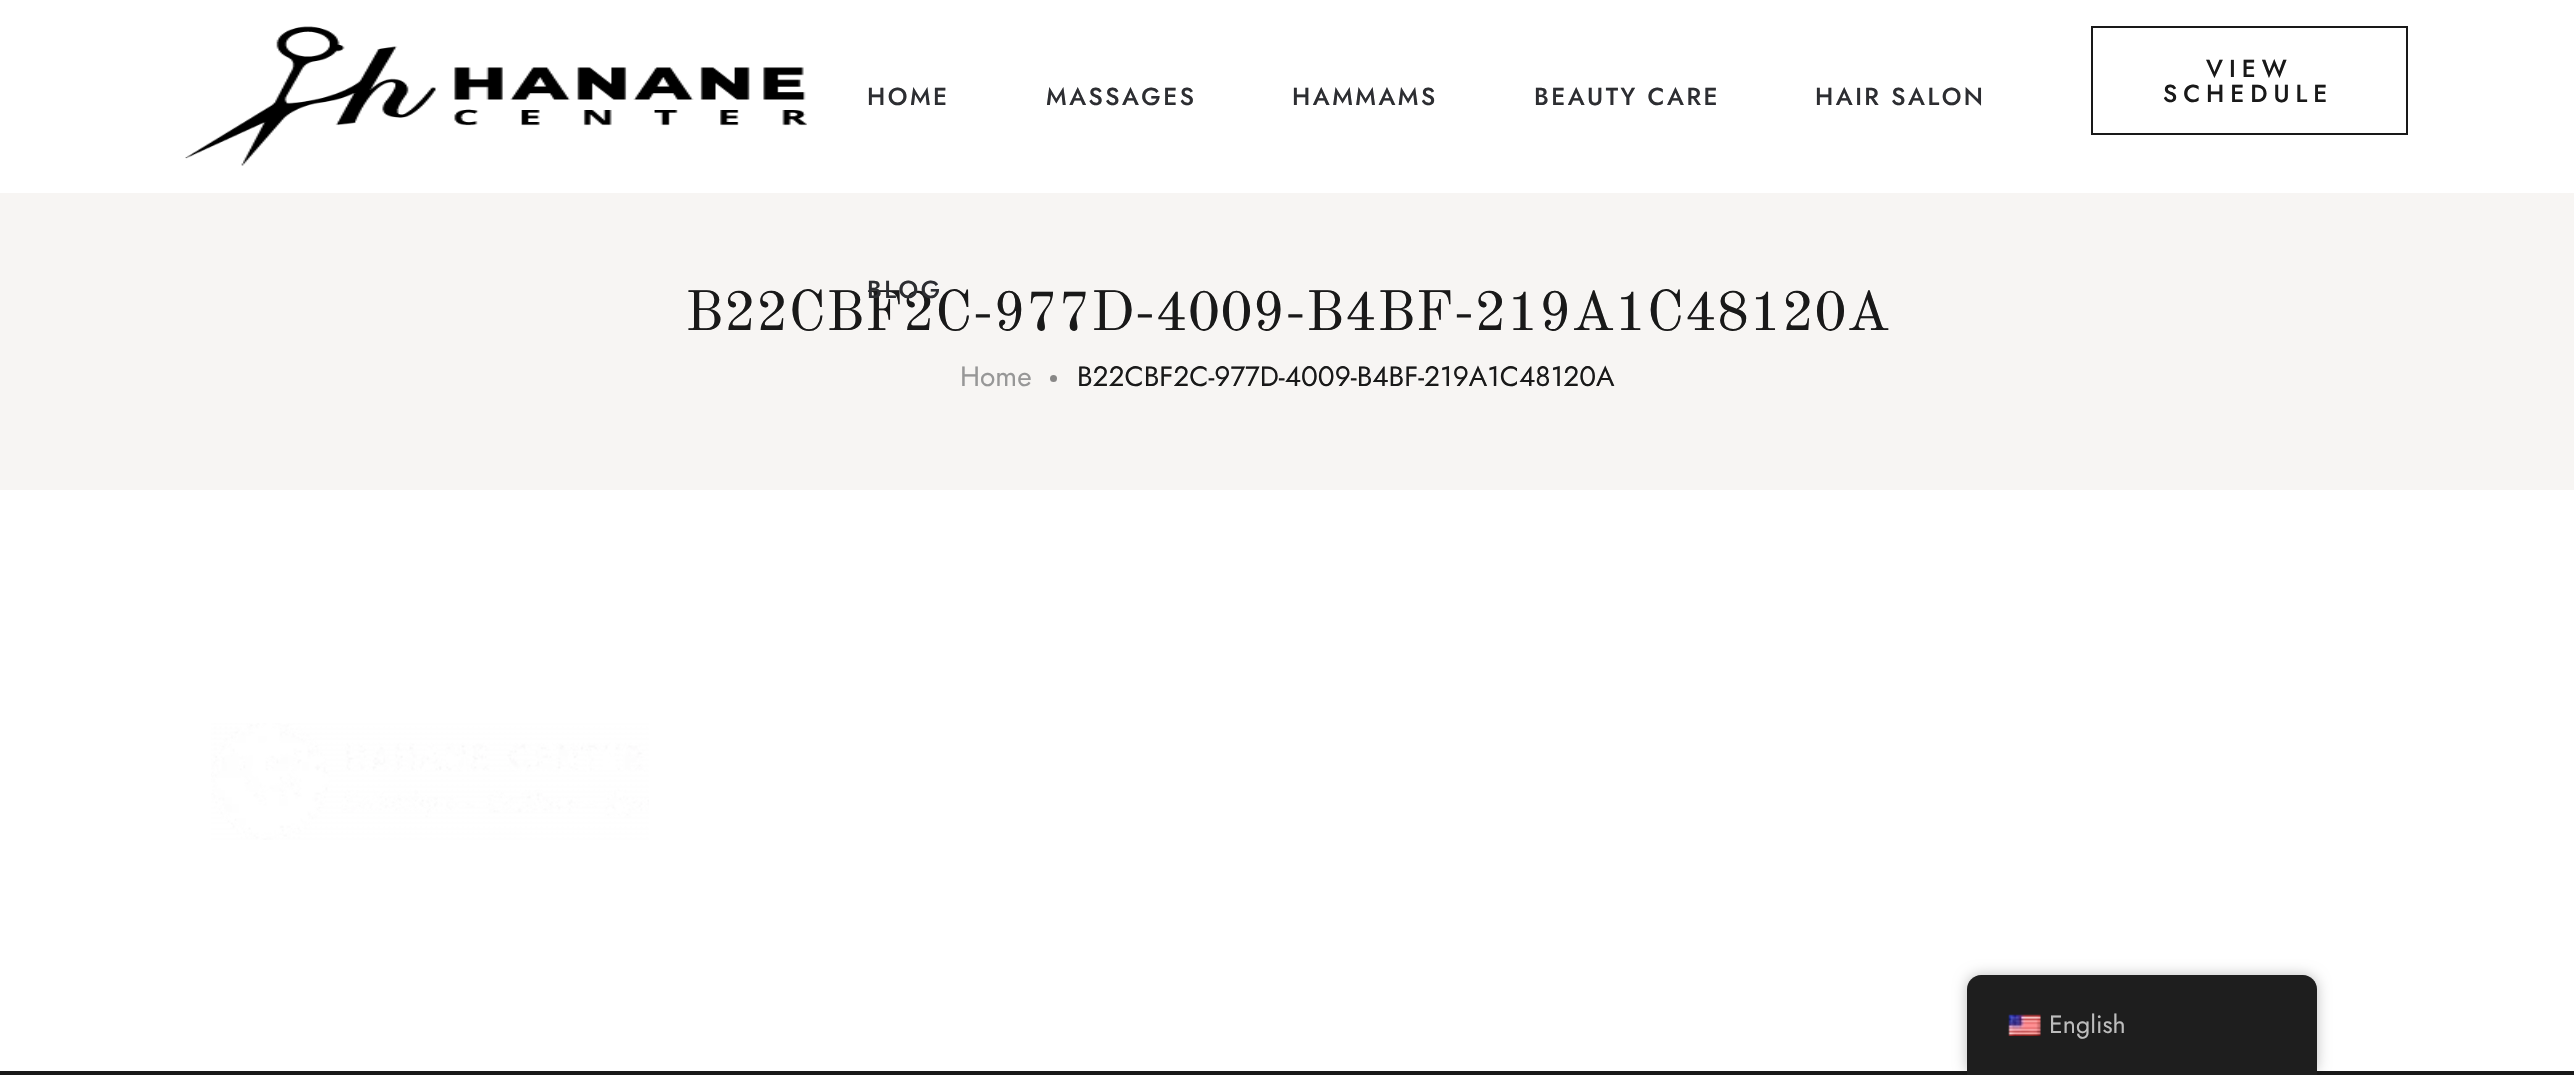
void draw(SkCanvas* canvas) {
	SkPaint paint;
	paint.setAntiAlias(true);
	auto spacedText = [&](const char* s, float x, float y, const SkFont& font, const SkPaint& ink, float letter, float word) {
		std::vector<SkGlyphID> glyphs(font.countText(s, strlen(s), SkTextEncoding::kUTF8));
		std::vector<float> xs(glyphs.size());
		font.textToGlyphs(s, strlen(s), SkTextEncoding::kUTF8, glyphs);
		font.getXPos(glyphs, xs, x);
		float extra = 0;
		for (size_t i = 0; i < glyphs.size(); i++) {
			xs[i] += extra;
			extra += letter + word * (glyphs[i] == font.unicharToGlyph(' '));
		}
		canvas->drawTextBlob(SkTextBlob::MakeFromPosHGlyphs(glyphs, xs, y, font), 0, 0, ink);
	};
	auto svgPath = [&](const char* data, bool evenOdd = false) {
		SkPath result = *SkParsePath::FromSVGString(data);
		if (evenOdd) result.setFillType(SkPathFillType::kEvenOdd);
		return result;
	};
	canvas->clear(0xffffffff);
	canvas->drawImageRect(SkImages::DeferredFromEncodedData(SkData::MakeFromFileName("img1.png")), SkRect::MakeXYWH(185, 26, 622, 140), SkSamplingOptions());
	paint.setStroke(true);
	paint.setStrokeWidth(2);
	paint.setColor(0xff191919);
	canvas->drawRect(SkRect::MakeXYWH(2092, 27, 315, 107), paint);
	SkFont f1(fontMgr->matchFamilyStyle("Jost", SkFontStyle(500, SkFontStyle::kNormal_Width, SkFontStyle::kUpright_Slant)), 24.5);
	f1.setSubpixel(true);
	paint.setStroke(false);
	spacedText("VIEW", 2206, 77, f1, paint, 6, 0);
	spacedText("SCHEDULE", 2163, 102, f1, paint, 6, 0);
	paint.setColor(0xff2d2e32);
	spacedText("HOME", 867, 105, f1, paint, 2.5, 0);
	spacedText("MASSAGES", 1046, 105, f1, paint, 2.5, 0);
	spacedText("HAMMAMS", 1292, 105, f1, paint, 2.5, 0);
	spacedText("BEAUTY CARE", 1534, 105, f1, paint, 2.5, 0);
	spacedText("HAIR SALON", 1815, 105, f1, paint, 2.5, 0);
	paint.setColor(0xfff7f5f3);
	canvas->drawRect(SkRect::MakeXYWH(0, 193, 2574, 297), paint);
	SkFont f2(fontMgr->matchFamilyStyle("Old Standard TT", SkFontStyle::Normal()), 56);
	f2.setSubpixel(true);
	paint.setColor(0xff191919);
	canvas->drawString("B22CBF2C-977D-4009-B4BF-219A1C48120A", 685, 330, f2, paint);
	paint.setColor(0xff2d2e32);
	spacedText("BLOG", 867, 298, f1, paint, 2.5, 0);
	SkFont f3(fontMgr->matchFamilyStyle("Jost", SkFontStyle::Normal()), 28);
	f3.setSubpixel(true);
	paint.setColor(0xff979797);
	canvas->drawString("Home", 960, 386, f3, paint);
	paint.setColor(0xff888786);
	canvas->drawCircle(1053.5, 378.5, 3.5, paint);
	paint.setColor(0xff191919);
	canvas->drawString("B22CBF2C-977D-4009-B4BF-219A1C48120A", 1077, 386, f3, paint);
	canvas->drawImageRect(SkImages::DeferredFromEncodedData(SkData::MakeFromFileName("img2.png")), SkRect::MakeXYWH(211, 723, 438, 117), SkSamplingOptions());
	canvas->drawRect(SkRect::MakeXYWH(0, 1071, 2574, 4), paint);
	paint.setColor(0x40000000);
	paint.setMaskFilter(SkMaskFilter::MakeBlur(kNormal_SkBlurStyle, 7));
	canvas->drawRoundRect(SkRect::MakeXYWH(1967, 975, 350, 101), 14, 14, paint);
	paint.setMaskFilter(nullptr);
	paint.setColor(0xff1e1e1e);
	canvas->drawPath(svgPath("M1981 975H2303C2310.5 975 2317 981.5 2317 989V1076H1967V989C1967 981.5 1973.5 975 1981 975Z"), paint);
	canvas->drawImageRect(SkImages::DeferredFromEncodedData(SkData::MakeFromFileName("img3.png")), SkRect::MakeXYWH(2008, 1014, 33, 22), SkSamplingOptions());
	SkFont f4(fontMgr->matchFamilyStyle("Jost", SkFontStyle::Normal()), 25);
	f4.setSubpixel(true);
	paint.setColor(0xffbdbdbd);
	canvas->drawString("English", 2049, 1033, f4, paint);
}
